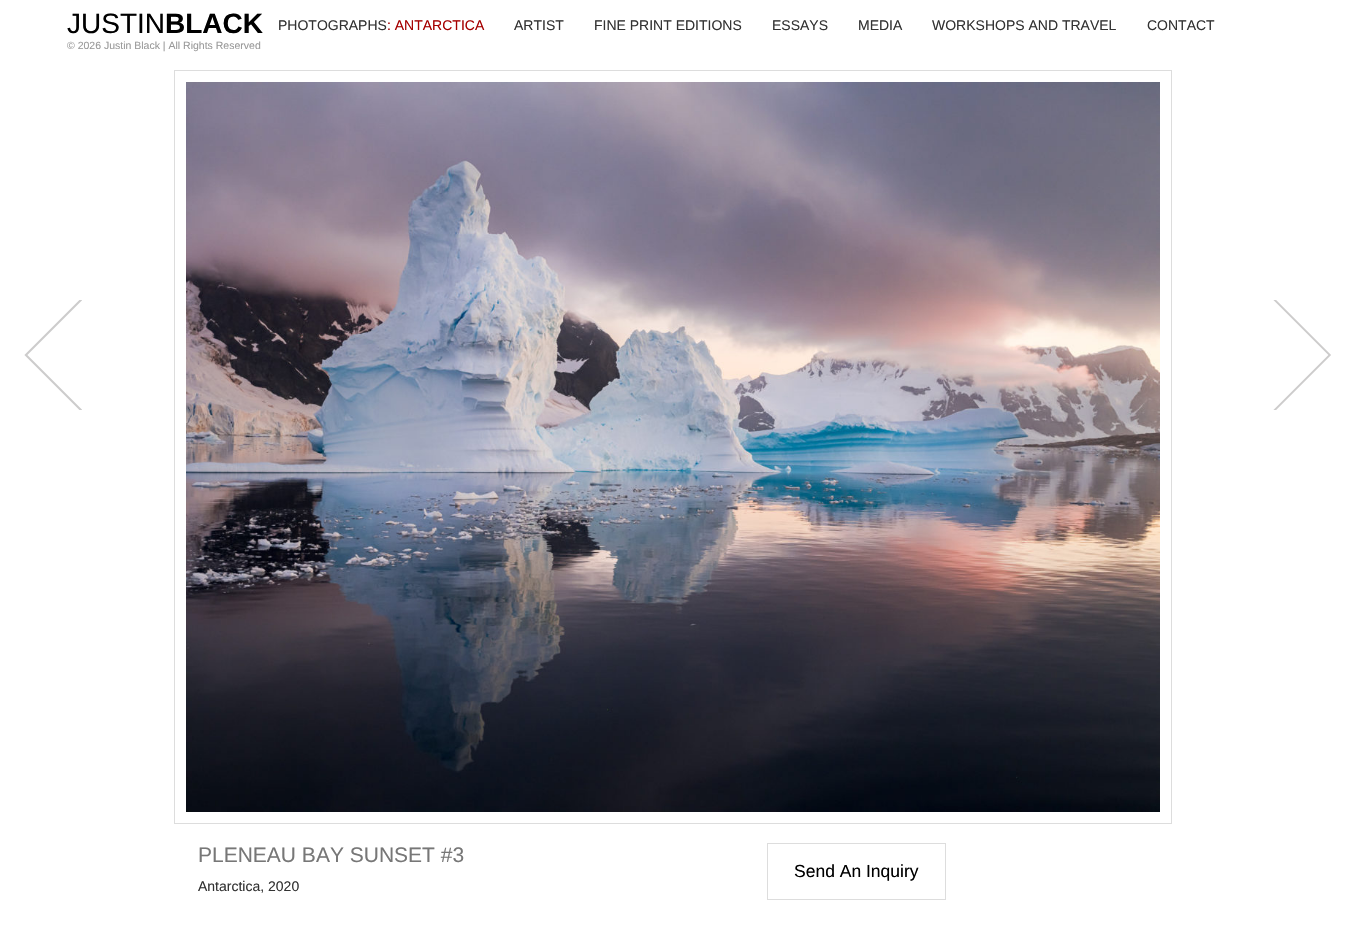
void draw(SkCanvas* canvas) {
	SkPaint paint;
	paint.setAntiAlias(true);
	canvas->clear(0xffffffff);
	SkFont f1(fontMgr->matchFamilyStyle("Liberation Sans", SkFontStyle::Normal()), 28);
	f1.setSubpixel(true);
	paint.setColor(0xff000000);
	canvas->drawString("JUSTIN", 67, 33, f1, paint);
	SkFont f2(fontMgr->matchFamilyStyle("Liberation Sans", SkFontStyle::Bold()), 28);
	f2.setSubpixel(true);
	canvas->drawString("BLACK", 165, 33, f2, paint);
	SkFont f3(fontMgr->matchFamilyStyle("Liberation Sans", SkFontStyle::Normal()), 10.5);
	f3.setSubpixel(true);
	paint.setColor(0xff999999);
	canvas->drawString("© 2026 Justin Black | All Rights Reserved", 67, 49, f3, paint);
	SkFont f4(fontMgr->matchFamilyStyle("Liberation Sans", SkFontStyle::Normal()), 14);
	f4.setSubpixel(true);
	paint.setColor(0xff333333);
	canvas->drawString("PHOTOGRAPHS", 278, 30, f4, paint);
	paint.setColor(0xffa50000);
	canvas->drawString(": ANTARCTICA", 387, 30, f4, paint);
	paint.setColor(0xff333333);
	canvas->drawString("ARTIST", 514, 30, f4, paint);
	canvas->drawString("FINE PRINT EDITIONS", 594, 30, f4, paint);
	canvas->drawString("ESSAYS", 772, 30, f4, paint);
	canvas->drawString("MEDIA", 858, 30, f4, paint);
	canvas->drawString("WORKSHOPS AND TRAVEL", 932, 30, f4, paint);
	canvas->drawString("CONTACT", 1147, 30, f4, paint);
	canvas->drawImageRect(SkImages::DeferredFromEncodedData(SkData::MakeFromFileName("img1.png")), SkRect::MakeXYWH(24, 300, 58, 110), SkSamplingOptions());
	canvas->drawImageRect(SkImages::DeferredFromEncodedData(SkData::MakeFromFileName("img2.png")), SkRect::MakeXYWH(1273, 300, 58, 110), SkSamplingOptions());
	paint.setStroke(true);
	paint.setStrokeWidth(1);
	paint.setColor(0xffdddddd);
	canvas->drawRect(SkRect::MakeXYWH(174.5, 70.5, 997, 753), paint);
	canvas->drawImageRect(SkImages::DeferredFromEncodedData(SkData::MakeFromFileName("img3.png")), SkRect::MakeXYWH(186, 82, 974, 730), SkSamplingOptions());
	SkFont f5(fontMgr->matchFamilyStyle("Liberation Sans", SkFontStyle::Normal()), 21);
	f5.setSubpixel(true);
	paint.setStroke(false);
	paint.setColor(0xff777777);
	canvas->drawString("PLENEAU BAY SUNSET #3", 198, 862, f5, paint);
	paint.setColor(0xff333333);
	canvas->drawString("Antarctica, 2020", 198, 891, f4, paint);
	paint.setStroke(true);
	paint.setColor(0xffdddddd);
	canvas->drawRect(SkRect::MakeXYWH(767.5, 843.5, 178, 56), paint);
	SkFont f6(fontMgr->matchFamilyStyle("Liberation Sans", SkFontStyle::Normal()), 17.5);
	f6.setSubpixel(true);
	paint.setStroke(false);
	paint.setColor(0xff000000);
	canvas->drawString("Send An Inquiry", 794, 877, f6, paint);
}
